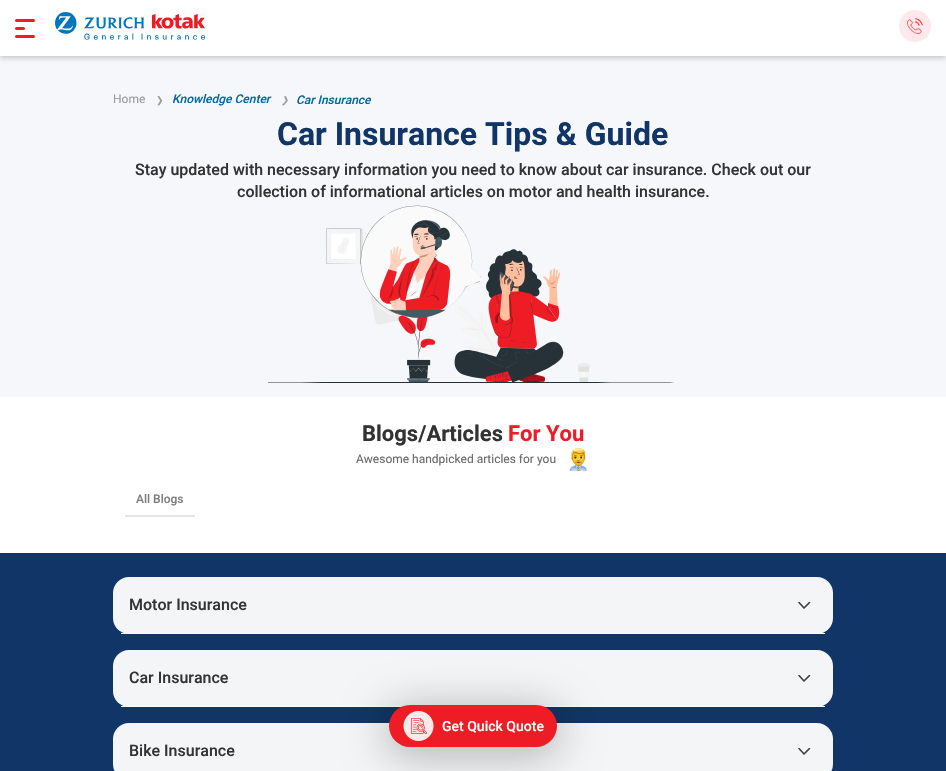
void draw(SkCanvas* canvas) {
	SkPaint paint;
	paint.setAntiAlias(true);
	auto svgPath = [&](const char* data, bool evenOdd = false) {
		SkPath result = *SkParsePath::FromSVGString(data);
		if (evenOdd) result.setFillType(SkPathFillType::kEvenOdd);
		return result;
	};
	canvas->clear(0xffffffff);
	paint.setColor(0xfff6f7fb);
	canvas->drawRect(SkRect::MakeXYWH(0, 56, 946, 341), paint);
	paint.setColor(0x33000000);
	paint.setMaskFilter(SkMaskFilter::MakeBlur(kNormal_SkBlurStyle, 2.5));
	canvas->drawRect(SkRect::MakeXYWH(0, 2, 946, 56), paint);
	paint.setMaskFilter(nullptr);
	paint.setColor(0xffffffff);
	canvas->drawRect(SkRect::MakeXYWH(0, 0, 946, 56), paint);
	paint.setColor(0xffee1c25);
	canvas->drawRoundRect(SkRect::MakeXYWH(15, 19, 20, 3), 1.5, 1.5, paint);
	canvas->drawRoundRect(SkRect::MakeXYWH(15, 27, 10, 3), 1.5, 1.5, paint);
	canvas->drawRoundRect(SkRect::MakeXYWH(15, 35, 20, 3), 1.5, 1.5, paint);
	canvas->drawImageRect(SkImages::DeferredFromEncodedData(SkData::MakeFromFileName("img1.png")), SkRect::MakeXYWH(55, 12, 150, 28), SkSamplingOptions());
	canvas->drawImageRect(SkImages::DeferredFromEncodedData(SkData::MakeFromFileName("img2.png")), SkRect::MakeXYWH(899, 10, 32, 32), SkSamplingOptions());
	SkFont f1(fontMgr->matchFamilyStyle("Roboto", SkFontStyle::Normal()), 12);
	f1.setSubpixel(true);
	paint.setColor(0xff9a9a9a);
	canvas->drawString("Home", 113, 103, f1, paint);
	SkFont f2(fontMgr->matchFamilyStyle("DejaVu Sans", SkFontStyle::Normal()), 9);
	f2.setSubpixel(true);
	canvas->drawString("❯", 156, 103, f2, paint);
	SkFont f3(fontMgr->matchFamilyStyle("Roboto", SkFontStyle(500, SkFontStyle::kNormal_Width, SkFontStyle::kItalic_Slant)), 12);
	f3.setSubpixel(true);
	paint.setColor(0xff0068a4);
	canvas->drawString("Knowledge Center", 172, 103, f3, paint);
	SkFont f4(fontMgr->matchFamilyStyle("DejaVu Sans", SkFontStyle::Italic()), 9);
	f4.setSubpixel(true);
	paint.setColor(0xff9a9a9a);
	canvas->drawString("❯", 281, 103, f4, paint);
	paint.setColor(0xff0068a4);
	canvas->drawString("Car Insurance", 296, 104, f3, paint);
	SkFont f5(fontMgr->matchFamilyStyle("Roboto", SkFontStyle::Bold()), 32);
	f5.setSubpixel(true);
	paint.setColor(0xff103566);
	canvas->drawString("Car Insurance Tips & Guide", 277, 145, f5, paint);
	SkFont f6(fontMgr->matchFamilyStyle("Roboto", SkFontStyle(500, SkFontStyle::kNormal_Width, SkFontStyle::kUpright_Slant)), 16);
	f6.setSubpixel(true);
	paint.setColor(0xff333333);
	canvas->drawString("Stay updated with necessary information you need to know about car insurance. Check out our", 135, 175, f6, paint);
	canvas->drawString("collection of informational articles on motor and health insurance.", 237, 197, f6, paint);
	canvas->drawImageRect(SkImages::DeferredFromEncodedData(SkData::MakeFromFileName("img3.png")), SkRect::MakeXYWH(268, 205, 406, 178), SkSamplingOptions());
	SkFont f7(fontMgr->matchFamilyStyle("Roboto", SkFontStyle::Bold()), 22);
	f7.setSubpixel(true);
	canvas->drawString("Blogs/Articles", 362, 441, f7, paint);
	paint.setColor(0xffee1c25);
	canvas->drawString("For You", 508, 441, f7, paint);
	paint.setColor(0xff666666);
	canvas->drawString("Awesome handpicked articles for you", 356, 463, f1, paint);
	canvas->drawImageRect(SkImages::DeferredFromEncodedData(SkData::MakeFromFileName("img4.png")), SkRect::MakeXYWH(569, 447, 18, 24), SkSamplingOptions());
	paint.setColor(0xffe5e5e5);
	canvas->drawRect(SkRect::MakeXYWH(125, 515, 70, 2), paint);
	SkFont f8(fontMgr->matchFamilyStyle("Roboto", SkFontStyle(500, SkFontStyle::kNormal_Width, SkFontStyle::kUpright_Slant)), 12);
	f8.setSubpixel(true);
	paint.setColor(0xff7e7d7d);
	canvas->drawString("All Blogs", 136, 503, f8, paint);
	paint.setColor(0xff103566);
	canvas->drawRect(SkRect::MakeXYWH(0, 553, 946, 218), paint);
	paint.setColor(0xfff3f5f7);
	canvas->drawRoundRect(SkRect::MakeXYWH(113, 577, 720, 57), 16, 16, paint);
	paint.setColor(0xffffffff);
	canvas->drawRect(SkRect::MakeXYWH(121, 633, 704, 1), paint);
	paint.setColor(0xff333333);
	canvas->drawString("Motor Insurance", 129, 610, f6, paint);
	canvas->save();
	canvas->clipRect(SkRect::MakeXYWH(798, 602, 13, 7));
	paint.setStroke(true);
	paint.setStrokeWidth(1.6);
	paint.setStrokeCap(SkPaint::kRound_Cap);
	paint.setStrokeJoin(SkPaint::kRound_Join);
	paint.setColor(0xff3f3f3f);
	canvas->drawPath(svgPath("M799 602.5L804 608L809.5 602.5"), paint);
	canvas->restore();
	paint.setStroke(false);
	paint.setColor(0xfff3f5f7);
	canvas->drawRoundRect(SkRect::MakeXYWH(113, 650, 720, 57), 16, 16, paint);
	paint.setColor(0xffffffff);
	canvas->drawRect(SkRect::MakeXYWH(121, 706, 704, 1), paint);
	paint.setColor(0xff333333);
	canvas->drawString("Car Insurance", 129, 683, f6, paint);
	canvas->save();
	canvas->clipRect(SkRect::MakeXYWH(798, 675, 13, 7));
	paint.setStroke(true);
	paint.setColor(0xff3f3f3f);
	canvas->drawPath(svgPath("M799 675.5L804 681L809.5 675.5"), paint);
	canvas->restore();
	paint.setStroke(false);
	paint.setColor(0xfff3f5f7);
	canvas->drawRoundRect(SkRect::MakeXYWH(113, 723, 720, 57), 16, 16, paint);
	paint.setColor(0xff333333);
	canvas->drawString("Bike Insurance", 129, 756, f6, paint);
	canvas->save();
	canvas->clipRect(SkRect::MakeXYWH(798, 748, 13, 7));
	paint.setStroke(true);
	paint.setColor(0xff3f3f3f);
	canvas->drawPath(svgPath("M799 748.5L804 754L809.5 748.5"), paint);
	canvas->restore();
	paint.setStroke(false);
	paint.setColor(0x40000000);
	paint.setMaskFilter(SkMaskFilter::MakeBlur(kNormal_SkBlurStyle, 21));
	canvas->drawRoundRect(SkRect::MakeXYWH(384, 706, 178, 52), 26, 26, paint);
	paint.setMaskFilter(nullptr);
	paint.setColor(0xffee1c25);
	canvas->drawRoundRect(SkRect::MakeXYWH(389, 705, 168, 42), 21, 21, paint);
	canvas->drawImageRect(SkImages::DeferredFromEncodedData(SkData::MakeFromFileName("img5.png")), SkRect::MakeXYWH(403, 711, 31, 30), SkSamplingOptions());
	SkFont f9(fontMgr->matchFamilyStyle("Roboto", SkFontStyle(500, SkFontStyle::kNormal_Width, SkFontStyle::kUpright_Slant)), 14);
	f9.setSubpixel(true);
	paint.setColor(0xffffffff);
	canvas->drawString("Get Quick Quote", 442, 731, f9, paint);
}
